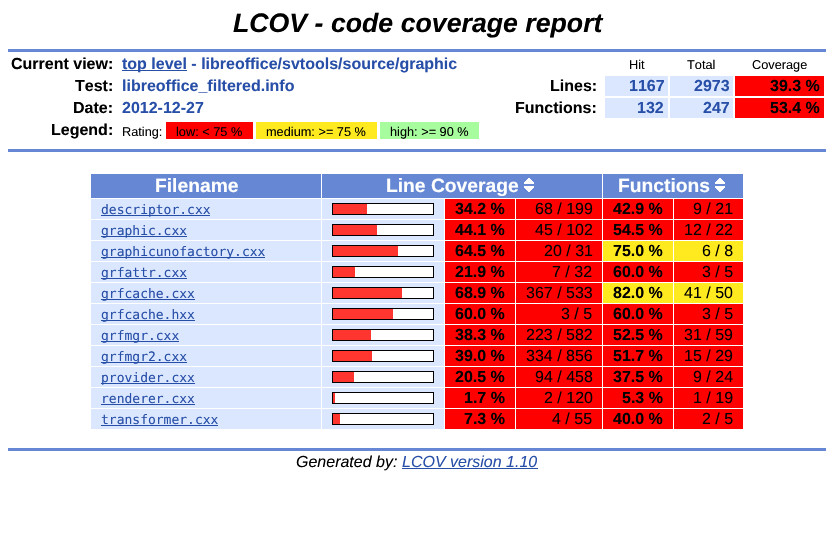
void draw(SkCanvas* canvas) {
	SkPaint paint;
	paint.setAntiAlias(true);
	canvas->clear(0xffffffff);
	SkFont f1(fontMgr->matchFamilyStyle("Liberation Sans", SkFontStyle::BoldItalic()), 26.7);
	f1.setSubpixel(true);
	paint.setColor(0xff000000);
	canvas->drawString("LCOV - code coverage report", 233, 32, f1, paint);
	paint.setColor(0xff6688d4);
	canvas->drawRect(SkRect::MakeXYWH(8, 49, 818, 3), paint);
	SkFont f2(fontMgr->matchFamilyStyle("Liberation Sans", SkFontStyle::Bold()), 16);
	f2.setSubpixel(true);
	paint.setColor(0xff000000);
	canvas->drawString("Current view:", 11, 69, f2, paint);
	paint.setColor(0xff284fa8);
	canvas->drawRect(SkRect::MakeXYWH(122, 70, 65, 1), paint);
	canvas->drawString("top level - libreoffice/svtools/source/graphic", 122, 69, f2, paint);
	SkFont f3(fontMgr->matchFamilyStyle("Liberation Sans", SkFontStyle::Normal()), 12.75);
	f3.setSubpixel(true);
	paint.setColor(0xff000000);
	canvas->drawString("Hit", 629, 69, f3, paint);
	canvas->drawString("Total", 687, 69, f3, paint);
	canvas->drawString("Coverage", 752, 69, f3, paint);
	canvas->drawString("Test:", 75, 91, f2, paint);
	paint.setColor(0xff284fa8);
	canvas->drawString("libreoffice_filtered.info", 122, 91, f2, paint);
	paint.setColor(0xff000000);
	canvas->drawString("Lines:", 550, 91, f2, paint);
	paint.setColor(0xffdae7fe);
	canvas->drawRect(SkRect::MakeXYWH(605, 76, 63, 20), paint);
	paint.setColor(0xff284fa8);
	canvas->drawString("1167", 629, 91, f2, paint);
	paint.setColor(0xffdae7fe);
	canvas->drawRect(SkRect::MakeXYWH(670, 76, 63, 20), paint);
	paint.setColor(0xff284fa8);
	canvas->drawString("2973", 694, 91, f2, paint);
	paint.setColor(0xffff0000);
	canvas->drawRect(SkRect::MakeXYWH(735, 76, 89, 20), paint);
	paint.setColor(0xff000000);
	canvas->drawString("39.3 %", 770, 91, f2, paint);
	canvas->drawString("Date:", 73, 113, f2, paint);
	paint.setColor(0xff284fa8);
	canvas->drawString("2012-12-27", 122, 113, f2, paint);
	paint.setColor(0xff000000);
	canvas->drawString("Functions:", 515, 113, f2, paint);
	paint.setColor(0xffdae7fe);
	canvas->drawRect(SkRect::MakeXYWH(605, 98, 63, 20), paint);
	paint.setColor(0xff284fa8);
	canvas->drawString("132", 637, 113, f2, paint);
	paint.setColor(0xffdae7fe);
	canvas->drawRect(SkRect::MakeXYWH(670, 98, 63, 20), paint);
	paint.setColor(0xff284fa8);
	canvas->drawString("247", 703, 113, f2, paint);
	paint.setColor(0xffff0000);
	canvas->drawRect(SkRect::MakeXYWH(735, 98, 89, 20), paint);
	paint.setColor(0xff000000);
	canvas->drawString("53.4 %", 770, 113, f2, paint);
	canvas->drawString("Legend:", 51, 135, f2, paint);
	canvas->drawString("Rating:", 122, 136, f3, paint);
	paint.setColor(0xffff0000);
	canvas->drawRect(SkRect::MakeXYWH(166, 122, 87, 17), paint);
	paint.setColor(0xff000000);
	canvas->drawString("low: < 75 %", 176, 136, f3, paint);
	paint.setColor(0xffffea20);
	canvas->drawRect(SkRect::MakeXYWH(256, 122, 121, 17), paint);
	paint.setColor(0xff000000);
	canvas->drawString("medium: >= 75 %", 266, 136, f3, paint);
	paint.setColor(0xffa7fc9d);
	canvas->drawRect(SkRect::MakeXYWH(380, 122, 99, 17), paint);
	paint.setColor(0xff000000);
	canvas->drawString("high: >= 90 %", 390, 136, f3, paint);
	paint.setColor(0xff6688d4);
	canvas->drawRect(SkRect::MakeXYWH(8, 149, 818, 3), paint);
	canvas->drawRect(SkRect::MakeXYWH(91, 174, 230, 24), paint);
	SkFont f4(fontMgr->matchFamilyStyle("Liberation Sans", SkFontStyle::Bold()), 19.25);
	f4.setSubpixel(true);
	paint.setColor(0xffffffff);
	canvas->drawString("Filename", 155, 192, f4, paint);
	paint.setColor(0xff6688d4);
	canvas->drawRect(SkRect::MakeXYWH(322, 174, 280, 24), paint);
	paint.setColor(0xffffffff);
	canvas->drawString("Line Coverage", 386, 192, f4, paint);
	canvas->drawImageRect(SkImages::DeferredFromEncodedData(SkData::MakeFromFileName("img1.png")), SkRect::MakeXYWH(524, 178, 10, 14), SkSamplingOptions());
	paint.setColor(0xff6688d4);
	canvas->drawRect(SkRect::MakeXYWH(603, 174, 140, 24), paint);
	paint.setColor(0xffffffff);
	canvas->drawString("Functions", 618, 192, f4, paint);
	canvas->drawImageRect(SkImages::DeferredFromEncodedData(SkData::MakeFromFileName("img1.png")), SkRect::MakeXYWH(715, 178, 10, 14), SkSamplingOptions());
	paint.setColor(0xffdae7fe);
	canvas->drawRect(SkRect::MakeXYWH(91, 199, 230, 20), paint);
	paint.setColor(0xff284fa8);
	canvas->drawRect(SkRect::MakeXYWH(101, 215, 109, 1), paint);
	SkFont f5(fontMgr->matchFamilyStyle("DejaVu Sans Mono", SkFontStyle::Normal()), 13);
	f5.setSubpixel(true);
	canvas->drawString("descriptor.cxx", 101, 214, f5, paint);
	paint.setColor(0xffdae7fe);
	canvas->drawRect(SkRect::MakeXYWH(322, 199, 122, 20), paint);
	paint.setColor(0xff000000);
	canvas->drawRect(SkRect::MakeXYWH(332, 203, 102, 12), paint);
	paint.setColor(0xffff352f);
	canvas->drawRect(SkRect::MakeXYWH(333, 204, 34, 10), paint);
	paint.setColor(0xffffffff);
	canvas->drawRect(SkRect::MakeXYWH(367, 204, 66, 10), paint);
	paint.setColor(0xffff0000);
	canvas->drawRect(SkRect::MakeXYWH(445, 199, 70, 20), paint);
	paint.setColor(0xff000000);
	canvas->drawString("34.2 %", 455, 214, f2, paint);
	paint.setColor(0xffff0000);
	canvas->drawRect(SkRect::MakeXYWH(516, 199, 86, 20), paint);
	SkFont f6(fontMgr->matchFamilyStyle("Liberation Sans", SkFontStyle::Normal()), 16);
	f6.setSubpixel(true);
	paint.setColor(0xff000000);
	canvas->drawString("68 / 199", 535, 214, f6, paint);
	paint.setColor(0xffff0000);
	canvas->drawRect(SkRect::MakeXYWH(603, 199, 70, 20), paint);
	paint.setColor(0xff000000);
	canvas->drawString("42.9 %", 613, 214, f2, paint);
	paint.setColor(0xffff0000);
	canvas->drawRect(SkRect::MakeXYWH(674, 199, 69, 20), paint);
	paint.setColor(0xff000000);
	canvas->drawString("9 / 21", 693, 214, f6, paint);
	paint.setColor(0xffdae7fe);
	canvas->drawRect(SkRect::MakeXYWH(91, 220, 230, 20), paint);
	paint.setColor(0xff284fa8);
	canvas->drawRect(SkRect::MakeXYWH(101, 236, 86, 1), paint);
	canvas->drawString("graphic.cxx", 101, 235, f5, paint);
	paint.setColor(0xffdae7fe);
	canvas->drawRect(SkRect::MakeXYWH(322, 220, 122, 20), paint);
	paint.setColor(0xff000000);
	canvas->drawRect(SkRect::MakeXYWH(332, 224, 102, 12), paint);
	paint.setColor(0xffff352f);
	canvas->drawRect(SkRect::MakeXYWH(333, 225, 44, 10), paint);
	paint.setColor(0xffffffff);
	canvas->drawRect(SkRect::MakeXYWH(377, 225, 56, 10), paint);
	paint.setColor(0xffff0000);
	canvas->drawRect(SkRect::MakeXYWH(445, 220, 70, 20), paint);
	paint.setColor(0xff000000);
	canvas->drawString("44.1 %", 455, 235, f2, paint);
	paint.setColor(0xffff0000);
	canvas->drawRect(SkRect::MakeXYWH(516, 220, 86, 20), paint);
	paint.setColor(0xff000000);
	canvas->drawString("45 / 102", 535, 235, f6, paint);
	paint.setColor(0xffff0000);
	canvas->drawRect(SkRect::MakeXYWH(603, 220, 70, 20), paint);
	paint.setColor(0xff000000);
	canvas->drawString("54.5 %", 613, 235, f2, paint);
	paint.setColor(0xffff0000);
	canvas->drawRect(SkRect::MakeXYWH(674, 220, 69, 20), paint);
	paint.setColor(0xff000000);
	canvas->drawString("12 / 22", 684, 235, f6, paint);
	paint.setColor(0xffdae7fe);
	canvas->drawRect(SkRect::MakeXYWH(91, 241, 230, 20), paint);
	paint.setColor(0xff284fa8);
	canvas->drawRect(SkRect::MakeXYWH(101, 257, 164, 1), paint);
	canvas->drawString("graphicunofactory.cxx", 101, 256, f5, paint);
	paint.setColor(0xffdae7fe);
	canvas->drawRect(SkRect::MakeXYWH(322, 241, 122, 20), paint);
	paint.setColor(0xff000000);
	canvas->drawRect(SkRect::MakeXYWH(332, 245, 102, 12), paint);
	paint.setColor(0xffff352f);
	canvas->drawRect(SkRect::MakeXYWH(333, 246, 65, 10), paint);
	paint.setColor(0xffffffff);
	canvas->drawRect(SkRect::MakeXYWH(398, 246, 35, 10), paint);
	paint.setColor(0xffff0000);
	canvas->drawRect(SkRect::MakeXYWH(445, 241, 70, 20), paint);
	paint.setColor(0xff000000);
	canvas->drawString("64.5 %", 455, 256, f2, paint);
	paint.setColor(0xffff0000);
	canvas->drawRect(SkRect::MakeXYWH(516, 241, 86, 20), paint);
	paint.setColor(0xff000000);
	canvas->drawString("20 / 31", 544, 256, f6, paint);
	paint.setColor(0xffffea20);
	canvas->drawRect(SkRect::MakeXYWH(603, 241, 70, 20), paint);
	paint.setColor(0xff000000);
	canvas->drawString("75.0 %", 613, 256, f2, paint);
	paint.setColor(0xffffea20);
	canvas->drawRect(SkRect::MakeXYWH(674, 241, 69, 20), paint);
	paint.setColor(0xff000000);
	canvas->drawString("6 / 8", 702, 256, f6, paint);
	paint.setColor(0xffdae7fe);
	canvas->drawRect(SkRect::MakeXYWH(91, 262, 230, 20), paint);
	paint.setColor(0xff284fa8);
	canvas->drawRect(SkRect::MakeXYWH(101, 278, 86, 1), paint);
	canvas->drawString("grfattr.cxx", 101, 277, f5, paint);
	paint.setColor(0xffdae7fe);
	canvas->drawRect(SkRect::MakeXYWH(322, 262, 122, 20), paint);
	paint.setColor(0xff000000);
	canvas->drawRect(SkRect::MakeXYWH(332, 266, 102, 12), paint);
	paint.setColor(0xffff352f);
	canvas->drawRect(SkRect::MakeXYWH(333, 267, 22, 10), paint);
	paint.setColor(0xffffffff);
	canvas->drawRect(SkRect::MakeXYWH(355, 267, 78, 10), paint);
	paint.setColor(0xffff0000);
	canvas->drawRect(SkRect::MakeXYWH(445, 262, 70, 20), paint);
	paint.setColor(0xff000000);
	canvas->drawString("21.9 %", 455, 277, f2, paint);
	paint.setColor(0xffff0000);
	canvas->drawRect(SkRect::MakeXYWH(516, 262, 86, 20), paint);
	paint.setColor(0xff000000);
	canvas->drawString("7 / 32", 552, 277, f6, paint);
	paint.setColor(0xffff0000);
	canvas->drawRect(SkRect::MakeXYWH(603, 262, 70, 20), paint);
	paint.setColor(0xff000000);
	canvas->drawString("60.0 %", 613, 277, f2, paint);
	paint.setColor(0xffff0000);
	canvas->drawRect(SkRect::MakeXYWH(674, 262, 69, 20), paint);
	paint.setColor(0xff000000);
	canvas->drawString("3 / 5", 702, 277, f6, paint);
	paint.setColor(0xffdae7fe);
	canvas->drawRect(SkRect::MakeXYWH(91, 283, 230, 20), paint);
	paint.setColor(0xff284fa8);
	canvas->drawRect(SkRect::MakeXYWH(101, 299, 94, 1), paint);
	canvas->drawString("grfcache.cxx", 101, 298, f5, paint);
	paint.setColor(0xffdae7fe);
	canvas->drawRect(SkRect::MakeXYWH(322, 283, 122, 20), paint);
	paint.setColor(0xff000000);
	canvas->drawRect(SkRect::MakeXYWH(332, 287, 102, 12), paint);
	paint.setColor(0xffff352f);
	canvas->drawRect(SkRect::MakeXYWH(333, 288, 69, 10), paint);
	paint.setColor(0xffffffff);
	canvas->drawRect(SkRect::MakeXYWH(402, 288, 31, 10), paint);
	paint.setColor(0xffff0000);
	canvas->drawRect(SkRect::MakeXYWH(445, 283, 70, 20), paint);
	paint.setColor(0xff000000);
	canvas->drawString("68.9 %", 455, 298, f2, paint);
	paint.setColor(0xffff0000);
	canvas->drawRect(SkRect::MakeXYWH(516, 283, 86, 20), paint);
	paint.setColor(0xff000000);
	canvas->drawString("367 / 533", 526, 298, f6, paint);
	paint.setColor(0xffffea20);
	canvas->drawRect(SkRect::MakeXYWH(603, 283, 70, 20), paint);
	paint.setColor(0xff000000);
	canvas->drawString("82.0 %", 613, 298, f2, paint);
	paint.setColor(0xffffea20);
	canvas->drawRect(SkRect::MakeXYWH(674, 283, 69, 20), paint);
	paint.setColor(0xff000000);
	canvas->drawString("41 / 50", 684, 298, f6, paint);
	paint.setColor(0xffdae7fe);
	canvas->drawRect(SkRect::MakeXYWH(91, 304, 230, 20), paint);
	paint.setColor(0xff284fa8);
	canvas->drawRect(SkRect::MakeXYWH(101, 320, 94, 1), paint);
	canvas->drawString("grfcache.hxx", 101, 319, f5, paint);
	paint.setColor(0xffdae7fe);
	canvas->drawRect(SkRect::MakeXYWH(322, 304, 122, 20), paint);
	paint.setColor(0xff000000);
	canvas->drawRect(SkRect::MakeXYWH(332, 308, 102, 12), paint);
	paint.setColor(0xffff352f);
	canvas->drawRect(SkRect::MakeXYWH(333, 309, 60, 10), paint);
	paint.setColor(0xffffffff);
	canvas->drawRect(SkRect::MakeXYWH(393, 309, 40, 10), paint);
	paint.setColor(0xffff0000);
	canvas->drawRect(SkRect::MakeXYWH(445, 304, 70, 20), paint);
	paint.setColor(0xff000000);
	canvas->drawString("60.0 %", 455, 319, f2, paint);
	paint.setColor(0xffff0000);
	canvas->drawRect(SkRect::MakeXYWH(516, 304, 86, 20), paint);
	paint.setColor(0xff000000);
	canvas->drawString("3 / 5", 561, 319, f6, paint);
	paint.setColor(0xffff0000);
	canvas->drawRect(SkRect::MakeXYWH(603, 304, 70, 20), paint);
	paint.setColor(0xff000000);
	canvas->drawString("60.0 %", 613, 319, f2, paint);
	paint.setColor(0xffff0000);
	canvas->drawRect(SkRect::MakeXYWH(674, 304, 69, 20), paint);
	paint.setColor(0xff000000);
	canvas->drawString("3 / 5", 702, 319, f6, paint);
	paint.setColor(0xffdae7fe);
	canvas->drawRect(SkRect::MakeXYWH(91, 325, 230, 20), paint);
	paint.setColor(0xff284fa8);
	canvas->drawRect(SkRect::MakeXYWH(101, 341, 78, 1), paint);
	canvas->drawString("grfmgr.cxx", 101, 340, f5, paint);
	paint.setColor(0xffdae7fe);
	canvas->drawRect(SkRect::MakeXYWH(322, 325, 122, 20), paint);
	paint.setColor(0xff000000);
	canvas->drawRect(SkRect::MakeXYWH(332, 329, 102, 12), paint);
	paint.setColor(0xffff352f);
	canvas->drawRect(SkRect::MakeXYWH(333, 330, 38, 10), paint);
	paint.setColor(0xffffffff);
	canvas->drawRect(SkRect::MakeXYWH(371, 330, 62, 10), paint);
	paint.setColor(0xffff0000);
	canvas->drawRect(SkRect::MakeXYWH(445, 325, 70, 20), paint);
	paint.setColor(0xff000000);
	canvas->drawString("38.3 %", 455, 340, f2, paint);
	paint.setColor(0xffff0000);
	canvas->drawRect(SkRect::MakeXYWH(516, 325, 86, 20), paint);
	paint.setColor(0xff000000);
	canvas->drawString("223 / 582", 526, 340, f6, paint);
	paint.setColor(0xffff0000);
	canvas->drawRect(SkRect::MakeXYWH(603, 325, 70, 20), paint);
	paint.setColor(0xff000000);
	canvas->drawString("52.5 %", 613, 340, f2, paint);
	paint.setColor(0xffff0000);
	canvas->drawRect(SkRect::MakeXYWH(674, 325, 69, 20), paint);
	paint.setColor(0xff000000);
	canvas->drawString("31 / 59", 684, 340, f6, paint);
	paint.setColor(0xffdae7fe);
	canvas->drawRect(SkRect::MakeXYWH(91, 346, 230, 20), paint);
	paint.setColor(0xff284fa8);
	canvas->drawRect(SkRect::MakeXYWH(101, 362, 86, 1), paint);
	canvas->drawString("grfmgr2.cxx", 101, 361, f5, paint);
	paint.setColor(0xffdae7fe);
	canvas->drawRect(SkRect::MakeXYWH(322, 346, 122, 20), paint);
	paint.setColor(0xff000000);
	canvas->drawRect(SkRect::MakeXYWH(332, 350, 102, 12), paint);
	paint.setColor(0xffff352f);
	canvas->drawRect(SkRect::MakeXYWH(333, 351, 39, 10), paint);
	paint.setColor(0xffffffff);
	canvas->drawRect(SkRect::MakeXYWH(372, 351, 61, 10), paint);
	paint.setColor(0xffff0000);
	canvas->drawRect(SkRect::MakeXYWH(445, 346, 70, 20), paint);
	paint.setColor(0xff000000);
	canvas->drawString("39.0 %", 455, 361, f2, paint);
	paint.setColor(0xffff0000);
	canvas->drawRect(SkRect::MakeXYWH(516, 346, 86, 20), paint);
	paint.setColor(0xff000000);
	canvas->drawString("334 / 856", 526, 361, f6, paint);
	paint.setColor(0xffff0000);
	canvas->drawRect(SkRect::MakeXYWH(603, 346, 70, 20), paint);
	paint.setColor(0xff000000);
	canvas->drawString("51.7 %", 613, 361, f2, paint);
	paint.setColor(0xffff0000);
	canvas->drawRect(SkRect::MakeXYWH(674, 346, 69, 20), paint);
	paint.setColor(0xff000000);
	canvas->drawString("15 / 29", 684, 361, f6, paint);
	paint.setColor(0xffdae7fe);
	canvas->drawRect(SkRect::MakeXYWH(91, 367, 230, 20), paint);
	paint.setColor(0xff284fa8);
	canvas->drawRect(SkRect::MakeXYWH(101, 383, 94, 1), paint);
	canvas->drawString("provider.cxx", 101, 382, f5, paint);
	paint.setColor(0xffdae7fe);
	canvas->drawRect(SkRect::MakeXYWH(322, 367, 122, 20), paint);
	paint.setColor(0xff000000);
	canvas->drawRect(SkRect::MakeXYWH(332, 371, 102, 12), paint);
	paint.setColor(0xffff352f);
	canvas->drawRect(SkRect::MakeXYWH(333, 372, 21, 10), paint);
	paint.setColor(0xffffffff);
	canvas->drawRect(SkRect::MakeXYWH(354, 372, 79, 10), paint);
	paint.setColor(0xffff0000);
	canvas->drawRect(SkRect::MakeXYWH(445, 367, 70, 20), paint);
	paint.setColor(0xff000000);
	canvas->drawString("20.5 %", 455, 382, f2, paint);
	paint.setColor(0xffff0000);
	canvas->drawRect(SkRect::MakeXYWH(516, 367, 86, 20), paint);
	paint.setColor(0xff000000);
	canvas->drawString("94 / 458", 535, 382, f6, paint);
	paint.setColor(0xffff0000);
	canvas->drawRect(SkRect::MakeXYWH(603, 367, 70, 20), paint);
	paint.setColor(0xff000000);
	canvas->drawString("37.5 %", 613, 382, f2, paint);
	paint.setColor(0xffff0000);
	canvas->drawRect(SkRect::MakeXYWH(674, 367, 69, 20), paint);
	paint.setColor(0xff000000);
	canvas->drawString("9 / 24", 693, 382, f6, paint);
	paint.setColor(0xffdae7fe);
	canvas->drawRect(SkRect::MakeXYWH(91, 388, 230, 20), paint);
	paint.setColor(0xff284fa8);
	canvas->drawString("renderer.cxx", 101, 403, f5, paint);
	canvas->drawRect(SkRect::MakeXYWH(101, 404, 94, 1), paint);
	paint.setColor(0xffdae7fe);
	canvas->drawRect(SkRect::MakeXYWH(322, 388, 122, 20), paint);
	paint.setColor(0xff000000);
	canvas->drawRect(SkRect::MakeXYWH(332, 392, 102, 12), paint);
	paint.setColor(0xffff352f);
	canvas->drawRect(SkRect::MakeXYWH(333, 393, 2, 10), paint);
	paint.setColor(0xffffffff);
	canvas->drawRect(SkRect::MakeXYWH(335, 393, 98, 10), paint);
	paint.setColor(0xffff0000);
	canvas->drawRect(SkRect::MakeXYWH(445, 388, 70, 20), paint);
	paint.setColor(0xff000000);
	canvas->drawString("1.7 %", 464, 403, f2, paint);
	paint.setColor(0xffff0000);
	canvas->drawRect(SkRect::MakeXYWH(516, 388, 86, 20), paint);
	paint.setColor(0xff000000);
	canvas->drawString("2 / 120", 544, 403, f6, paint);
	paint.setColor(0xffff0000);
	canvas->drawRect(SkRect::MakeXYWH(603, 388, 70, 20), paint);
	paint.setColor(0xff000000);
	canvas->drawString("5.3 %", 622, 403, f2, paint);
	paint.setColor(0xffff0000);
	canvas->drawRect(SkRect::MakeXYWH(674, 388, 69, 20), paint);
	paint.setColor(0xff000000);
	canvas->drawString("1 / 19", 693, 403, f6, paint);
	paint.setColor(0xffdae7fe);
	canvas->drawRect(SkRect::MakeXYWH(91, 409, 230, 20), paint);
	paint.setColor(0xff284fa8);
	canvas->drawString("transformer.cxx", 101, 424, f5, paint);
	canvas->drawRect(SkRect::MakeXYWH(101, 425, 117, 1), paint);
	paint.setColor(0xffdae7fe);
	canvas->drawRect(SkRect::MakeXYWH(322, 409, 122, 20), paint);
	paint.setColor(0xff000000);
	canvas->drawRect(SkRect::MakeXYWH(332, 413, 102, 12), paint);
	paint.setColor(0xffff352f);
	canvas->drawRect(SkRect::MakeXYWH(333, 414, 7, 10), paint);
	paint.setColor(0xffffffff);
	canvas->drawRect(SkRect::MakeXYWH(340, 414, 93, 10), paint);
	paint.setColor(0xffff0000);
	canvas->drawRect(SkRect::MakeXYWH(445, 409, 70, 20), paint);
	paint.setColor(0xff000000);
	canvas->drawString("7.3 %", 464, 424, f2, paint);
	paint.setColor(0xffff0000);
	canvas->drawRect(SkRect::MakeXYWH(516, 409, 86, 20), paint);
	paint.setColor(0xff000000);
	canvas->drawString("4 / 55", 552, 424, f6, paint);
	paint.setColor(0xffff0000);
	canvas->drawRect(SkRect::MakeXYWH(603, 409, 70, 20), paint);
	paint.setColor(0xff000000);
	canvas->drawString("40.0 %", 613, 424, f2, paint);
	paint.setColor(0xffff0000);
	canvas->drawRect(SkRect::MakeXYWH(674, 409, 69, 20), paint);
	paint.setColor(0xff000000);
	canvas->drawString("2 / 5", 702, 424, f6, paint);
	paint.setColor(0xff6688d4);
	canvas->drawRect(SkRect::MakeXYWH(8, 448, 818, 3), paint);
	SkFont f7(fontMgr->matchFamilyStyle("Liberation Sans", SkFontStyle::Italic()), 16);
	f7.setSubpixel(true);
	paint.setColor(0xff000000);
	canvas->drawString("Generated by:", 296, 467, f7, paint);
	paint.setColor(0xff284fa8);
	canvas->drawString("LCOV version 1.10", 402, 467, f7, paint);
	canvas->drawRect(SkRect::MakeXYWH(402, 468, 136, 1), paint);
}
